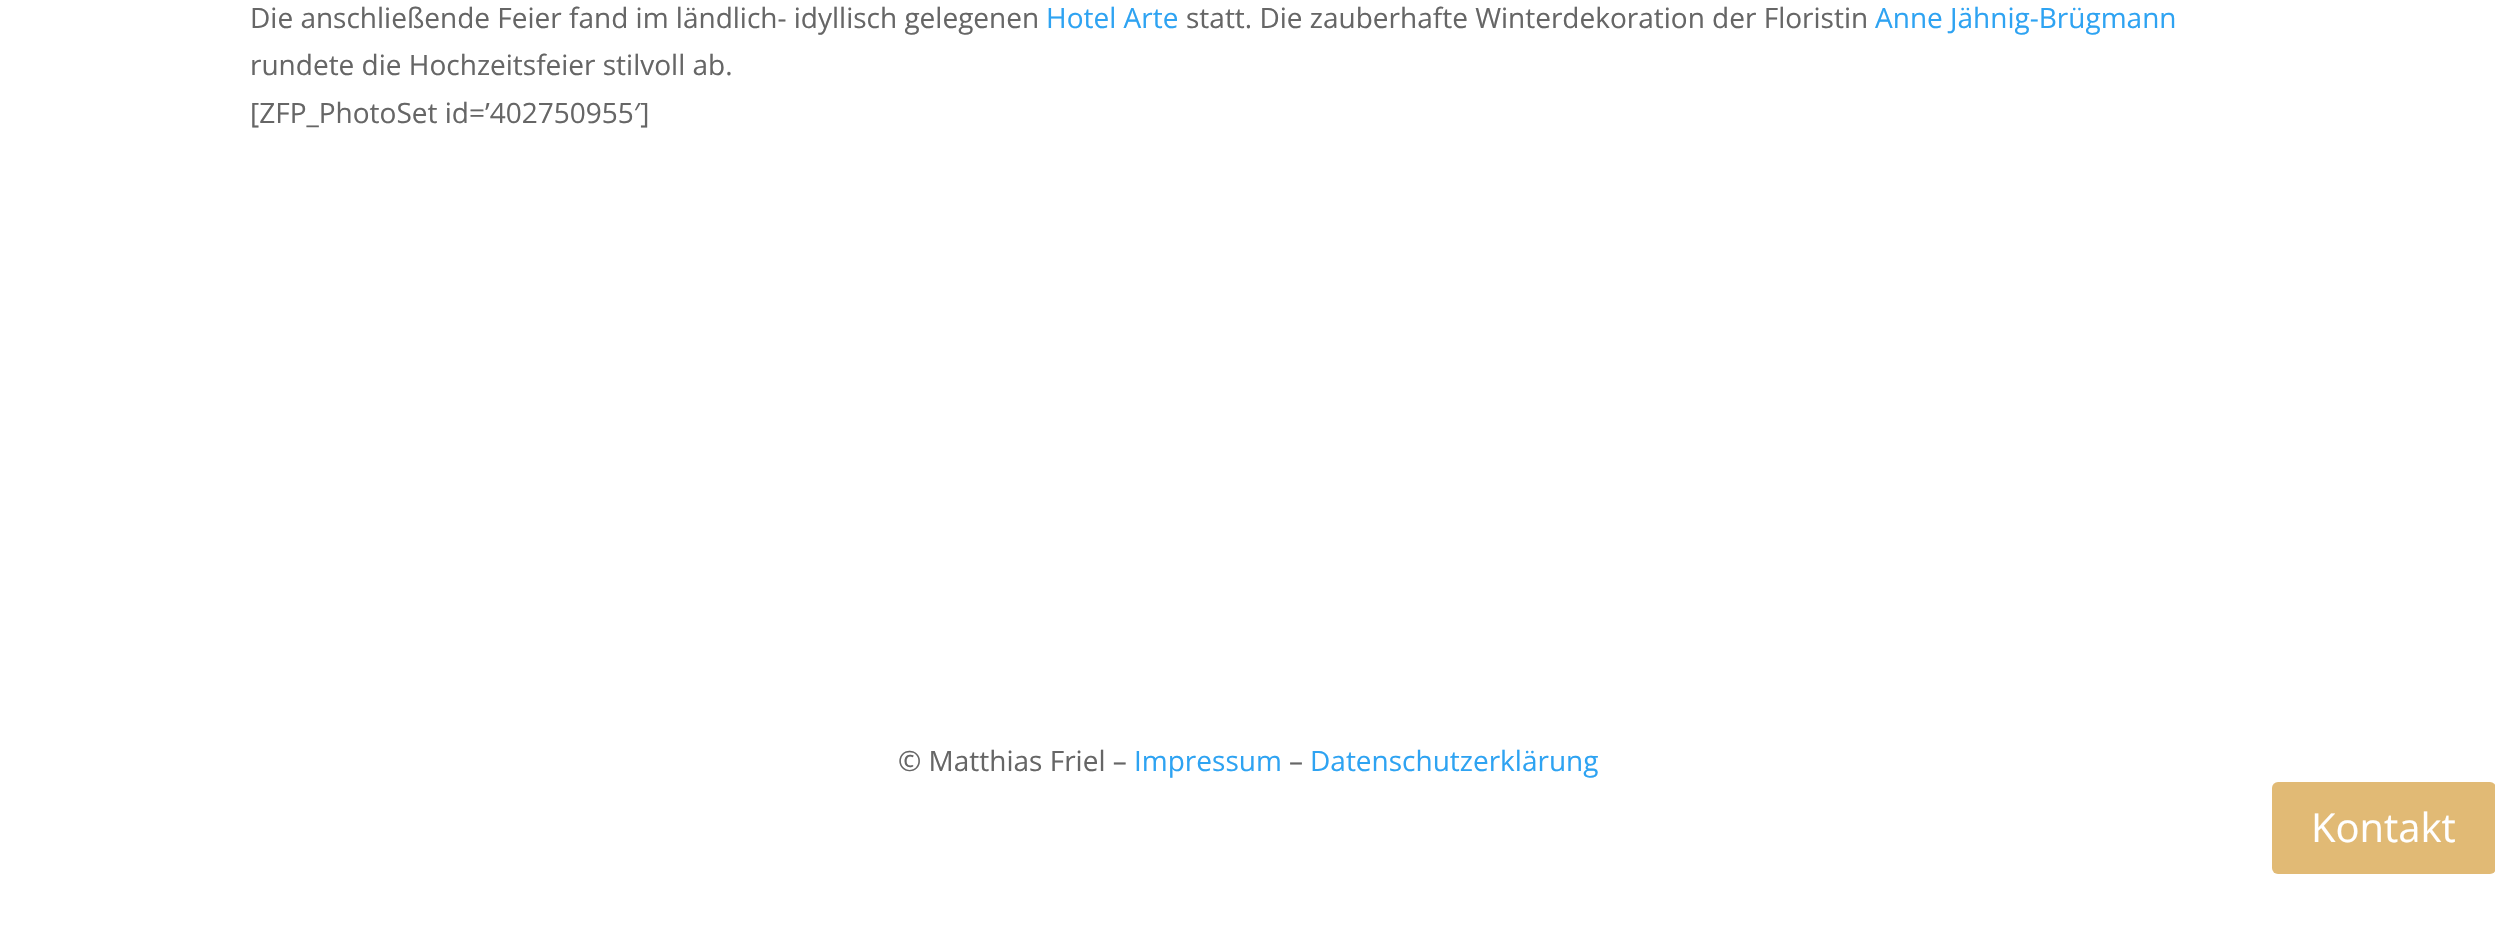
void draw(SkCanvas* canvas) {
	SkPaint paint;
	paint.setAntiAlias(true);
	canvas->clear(0xffffffff);
	SkFont f1(fontMgr->matchFamilyStyle("Open Sans", SkFontStyle::Normal()), 28);
	f1.setSubpixel(true);
	paint.setColor(0xff666666);
	canvas->drawString("Die anschließende Feier fand im ländlich- idyllisch gelegenen", 250, 28, f1, paint);
	paint.setColor(0xff2ea3f2);
	canvas->drawString("Hotel Arte", 1046, 28, f1, paint);
	paint.setColor(0xff666666);
	canvas->drawString("statt. Die zauberhafte Winterdekoration der Floristin", 1186, 28, f1, paint);
	paint.setColor(0xff2ea3f2);
	canvas->drawString("Anne Jähnig-Brügmann", 1875, 28, f1, paint);
	paint.setColor(0xff666666);
	canvas->drawString("rundete die Hochzeitsfeier stilvoll ab.", 250, 75, f1, paint);
	canvas->drawString("[ZFP_PhotoSet id=’402750955′]", 250, 123, f1, paint);
	canvas->drawString("© Matthias Friel –", 898, 771, f1, paint);
	paint.setColor(0xff2ea3f2);
	canvas->drawString("Impressum", 1134, 771, f1, paint);
	paint.setColor(0xff666666);
	canvas->drawString("–", 1289, 771, f1, paint);
	paint.setColor(0xff2ea3f2);
	canvas->drawString("Datenschutzerklärung", 1310, 771, f1, paint);
	paint.setColor(0xffe1ba75);
	canvas->drawRoundRect(SkRect::MakeXYWH(2272, 782, 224, 92), 6, 6, paint);
	SkFont f2(fontMgr->matchFamilyStyle("Open Sans", SkFontStyle::Normal()), 40);
	f2.setSubpixel(true);
	paint.setColor(0xffffffff);
	canvas->drawString("Kontakt", 2311, 842, f2, paint);
}
